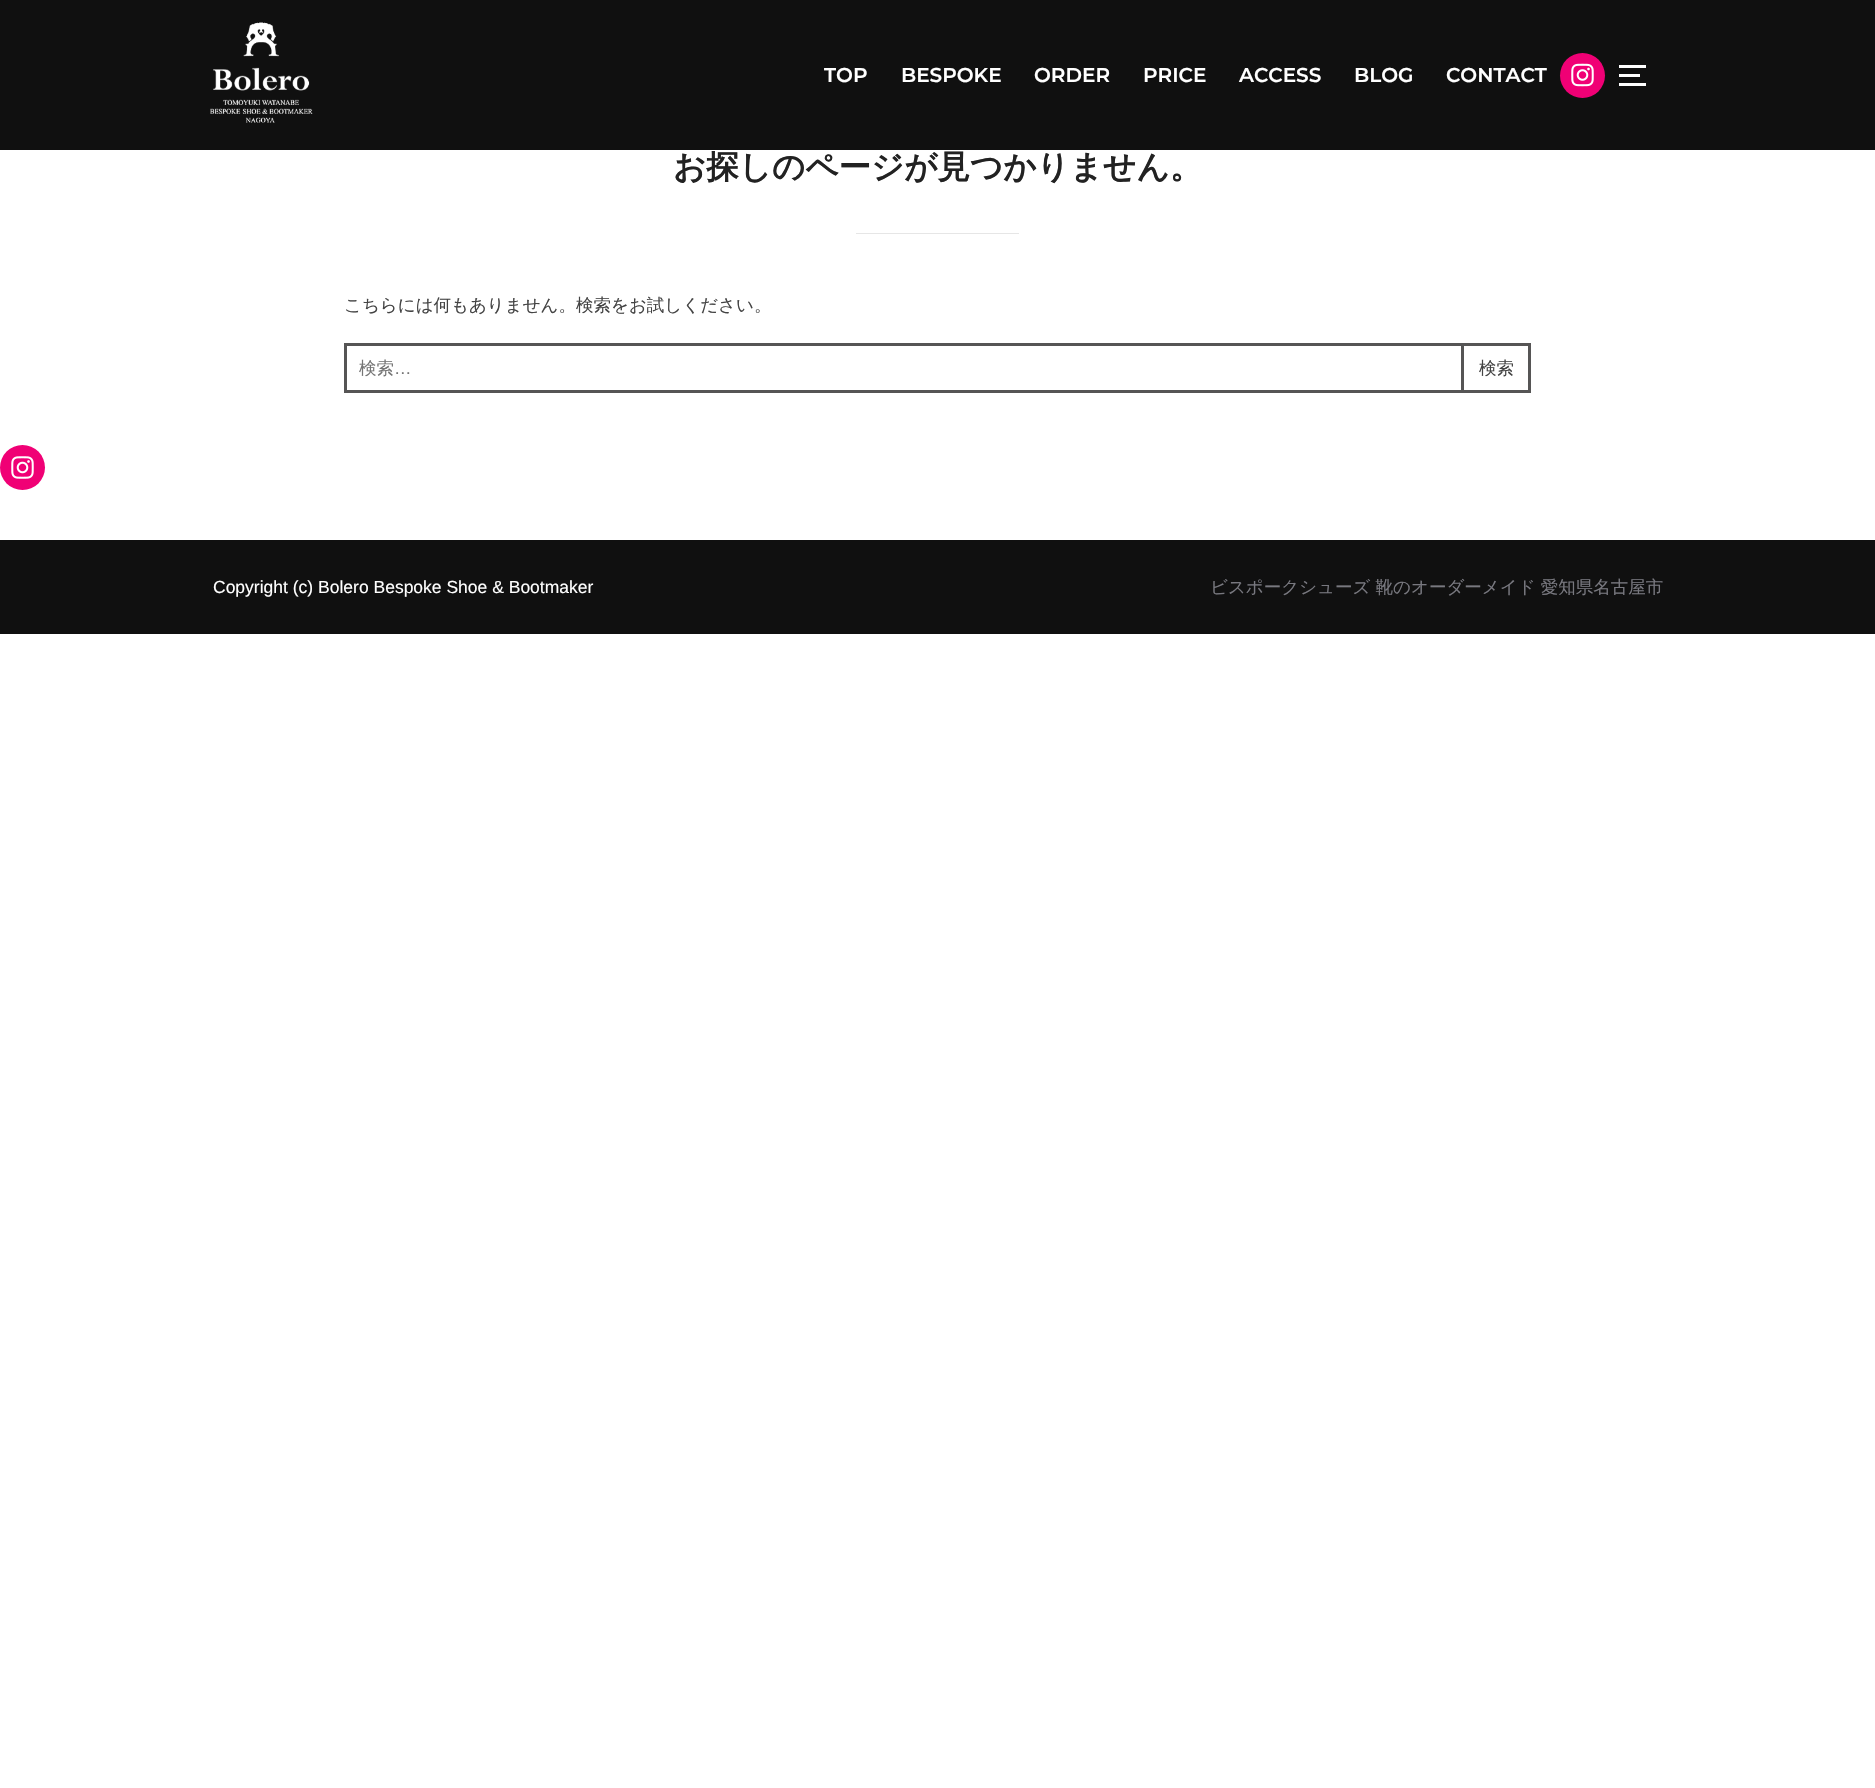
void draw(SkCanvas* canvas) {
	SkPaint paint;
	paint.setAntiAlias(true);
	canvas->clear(0xffffffff);
	paint.setColor(0xff101010);
	canvas->drawRect(SkRect::MakeXYWH(0, 0, 1875, 150), paint);
	canvas->drawImageRect(SkImages::DeferredFromEncodedData(SkData::MakeFromFileName("img1.png")), SkRect::MakeXYWH(210, 22, 103, 101), SkSamplingOptions());
	SkFont f1(fontMgr->matchFamilyStyle("Montserrat", SkFontStyle(600, SkFontStyle::kNormal_Width, SkFontStyle::kUpright_Slant)), 20);
	f1.setSubpixel(true);
	paint.setColor(0xffffffff);
	canvas->drawString("TOP", 824, 82, f1, paint);
	canvas->drawString("BESPOKE", 901, 82, f1, paint);
	canvas->drawString("ORDER", 1034, 82, f1, paint);
	canvas->drawString("PRICE", 1143, 82, f1, paint);
	canvas->drawString("ACCESS", 1239, 82, f1, paint);
	canvas->drawString("BLOG", 1354, 82, f1, paint);
	canvas->drawString("CONTACT", 1446, 82, f1, paint);
	paint.setColor(0xfff00075);
	canvas->drawCircle(1582.5, 75.5, 22.5, paint);
	canvas->drawImageRect(SkImages::DeferredFromEncodedData(SkData::MakeFromFileName("img2.png")), SkRect::MakeXYWH(1571, 63, 23, 24), SkSamplingOptions());
	paint.setColor(0xffffffff);
	canvas->drawRect(SkRect::MakeXYWH(1619, 65, 27, 3), paint);
	canvas->drawRect(SkRect::MakeXYWH(1619, 74, 21, 3), paint);
	canvas->drawRect(SkRect::MakeXYWH(1619, 83, 27, 3), paint);
	SkFont f2(fontMgr->matchFamilyStyle("WenQuanYi Zen Hei", SkFontStyle::Bold()), 32.5);
	f2.setSubpixel(true);
	paint.setColor(0xff222222);
	canvas->drawString("お探しのページが見つかりません。", 673, 178, f2, paint);
	paint.setColor(0xffe6e6e6);
	canvas->drawRect(SkRect::MakeXYWH(856, 233, 163, 1), paint);
	SkFont f3(fontMgr->matchFamilyStyle("WenQuanYi Zen Hei", SkFontStyle(500, SkFontStyle::kNormal_Width, SkFontStyle::kUpright_Slant)), 17.5);
	f3.setSubpixel(true);
	paint.setColor(0xff444444);
	canvas->drawString("こちらには何もありません。検索をお試しください。", 344, 311, f3, paint);
	paint.setStroke(true);
	paint.setStrokeWidth(3);
	paint.setColor(0xff565555);
	canvas->drawRect(SkRect::MakeXYWH(345.5, 344.5, 1184, 47), paint);
	paint.setStroke(false);
	paint.setColor(0xff757575);
	canvas->drawString("検索", 359, 374, f3, paint);
	SkFont f4(fontMgr->matchFamilyStyle("Liberation Sans", SkFontStyle::Normal()), 17.5);
	f4.setSubpixel(true);
	canvas->drawString("…", 394, 374, f4, paint);
	paint.setStroke(true);
	paint.setColor(0xff565555);
	canvas->drawRect(SkRect::MakeXYWH(1462.5, 344.5, 67, 47), paint);
	paint.setStroke(false);
	paint.setColor(0xff444444);
	canvas->drawString("検索", 1479, 374, f3, paint);
	paint.setColor(0xfff00075);
	canvas->drawCircle(22.5, 467.5, 22.5, paint);
	canvas->drawImageRect(SkImages::DeferredFromEncodedData(SkData::MakeFromFileName("img3.png")), SkRect::MakeXYWH(11, 456, 23, 23), SkSamplingOptions());
	paint.setColor(0xff101010);
	canvas->drawRect(SkRect::MakeXYWH(0, 540, 1875, 94), paint);
	paint.setColor(0xffffffff);
	canvas->drawString("Copyright (c) Bolero Bespoke Shoe & Bootmaker", 213, 593, f4, paint);
	paint.setColor(0xff78787f);
	canvas->drawString("ビスポークシューズ 靴のオーダーメイド 愛知県名古屋市", 1210, 593, f3, paint);
}
